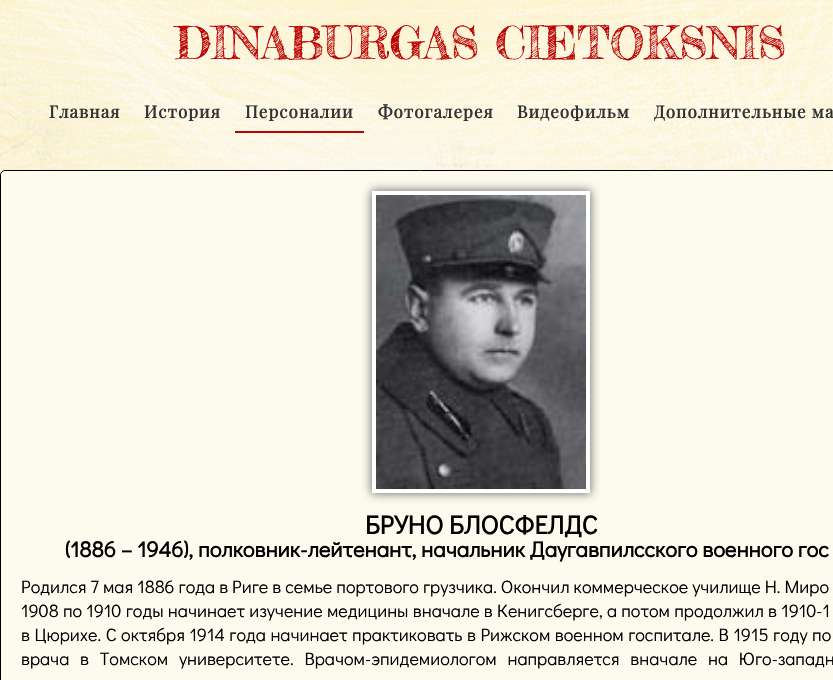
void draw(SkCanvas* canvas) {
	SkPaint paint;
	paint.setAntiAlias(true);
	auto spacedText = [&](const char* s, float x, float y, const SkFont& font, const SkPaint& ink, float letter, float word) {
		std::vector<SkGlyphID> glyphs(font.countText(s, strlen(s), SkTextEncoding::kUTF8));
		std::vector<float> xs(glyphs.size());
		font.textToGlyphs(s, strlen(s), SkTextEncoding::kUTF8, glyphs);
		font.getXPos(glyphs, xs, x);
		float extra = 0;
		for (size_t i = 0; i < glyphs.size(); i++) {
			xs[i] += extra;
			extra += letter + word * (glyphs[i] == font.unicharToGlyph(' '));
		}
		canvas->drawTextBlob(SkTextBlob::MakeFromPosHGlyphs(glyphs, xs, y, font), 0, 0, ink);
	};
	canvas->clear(0xffffffff);
	canvas->drawImageRect(SkImages::DeferredFromEncodedData(SkData::MakeFromFileName("img1.png")), SkRect::MakeXYWH(0, 0, 833, 175), SkSamplingOptions());
	SkFont f1(fontMgr->matchFamilyStyle("Fredericka the Great", SkFontStyle::Normal()), 45);
	f1.setSubpixel(true);
	paint.setColor(0xffbb0000);
	canvas->drawString("DINABURGAS CIETOKSNIS", 175, 59, f1, paint);
	SkFont f2(fontMgr->matchFamilyStyle("Playfair Display", SkFontStyle::Bold()), 17);
	f2.setSubpixel(true);
	paint.setColor(0xff333333);
	spacedText("Главная", 49, 118, f2, paint, 1, 0);
	spacedText("История", 144, 118, f2, paint, 1, 0);
	paint.setColor(0xffbb0000);
	canvas->drawRect(SkRect::MakeXYWH(235, 131, 129, 2), paint);
	paint.setColor(0xff333333);
	spacedText("Персоналии", 245, 118, f2, paint, 1, 0);
	spacedText("Фотогалерея", 378, 118, f2, paint, 1, 0);
	spacedText("Видеофильм", 517, 118, f2, paint, 1, 0);
	spacedText("Дополнительные ма", 654, 118, f2, paint, 1, 0);
	paint.setColor(0xfffdfbee);
	canvas->drawRoundRect(SkRect::MakeXYWH(0.5, 170.5, 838, 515), 4.5, 4.5, paint);
	paint.setStroke(true);
	paint.setStrokeWidth(1);
	paint.setColor(0xff000000);
	canvas->drawRoundRect(SkRect::MakeXYWH(0.5, 170.5, 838, 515), 4.5, 4.5, paint);
	paint.setStroke(false);
	paint.setColor(0xff777777);
	paint.setMaskFilter(SkMaskFilter::MakeBlur(kNormal_SkBlurStyle, 5));
	canvas->drawRoundRect(SkRect::MakeXYWH(371, 190, 220, 304), 3, 3, paint);
	paint.setMaskFilter(nullptr);
	paint.setStroke(true);
	paint.setStrokeWidth(4);
	paint.setColor(0xffffffff);
	canvas->drawRect(SkRect::MakeXYWH(374, 193, 214, 298), paint);
	canvas->drawImageRect(SkImages::DeferredFromEncodedData(SkData::MakeFromFileName("img2.png")), SkRect::MakeXYWH(376, 195, 210, 294), SkSamplingOptions());
	SkFont f3(fontMgr->matchFamilyStyle("Didact Gothic", SkFontStyle::Bold()), 26);
	f3.setSubpixel(true);
	paint.setStroke(false);
	paint.setColor(0xff000000);
	canvas->drawString("БРУНО БЛОСФЕЛДС", 365, 534, f3, paint);
	SkFont f4(fontMgr->matchFamilyStyle("Didact Gothic", SkFontStyle::Bold()), 22);
	f4.setSubpixel(true);
	canvas->drawString("(1886 – 1946), полковник-лейтенант, начальник Даугавпилсского военного гос", 65, 557, f4, paint);
	SkFont f5(fontMgr->matchFamilyStyle("Didact Gothic", SkFontStyle::Normal()), 18);
	f5.setSubpixel(true);
	canvas->drawString("Родился 7 мая 1886 года в Риге в семье портового грузчика. Окончил коммерческое училище Н. Миро", 21, 593, f5, paint);
	spacedText("1908 по 1910 годы начинает изучение медицины вначале в Кенигсберге, а потом продолжил в 1910-1", 21, 617, f5, paint, 0, 0.25);
	spacedText("в Цюрихе. С октября 1914 года начинает практиковать в Рижском военном госпитале. В 1915 году по", 21, 641, f5, paint, 0, 0.5);
	spacedText("врача в Томском университете. Врачом-эпидемиологом направляется вначале на Юго-западн", 21, 665, f5, paint, 0, 6.75);
}
